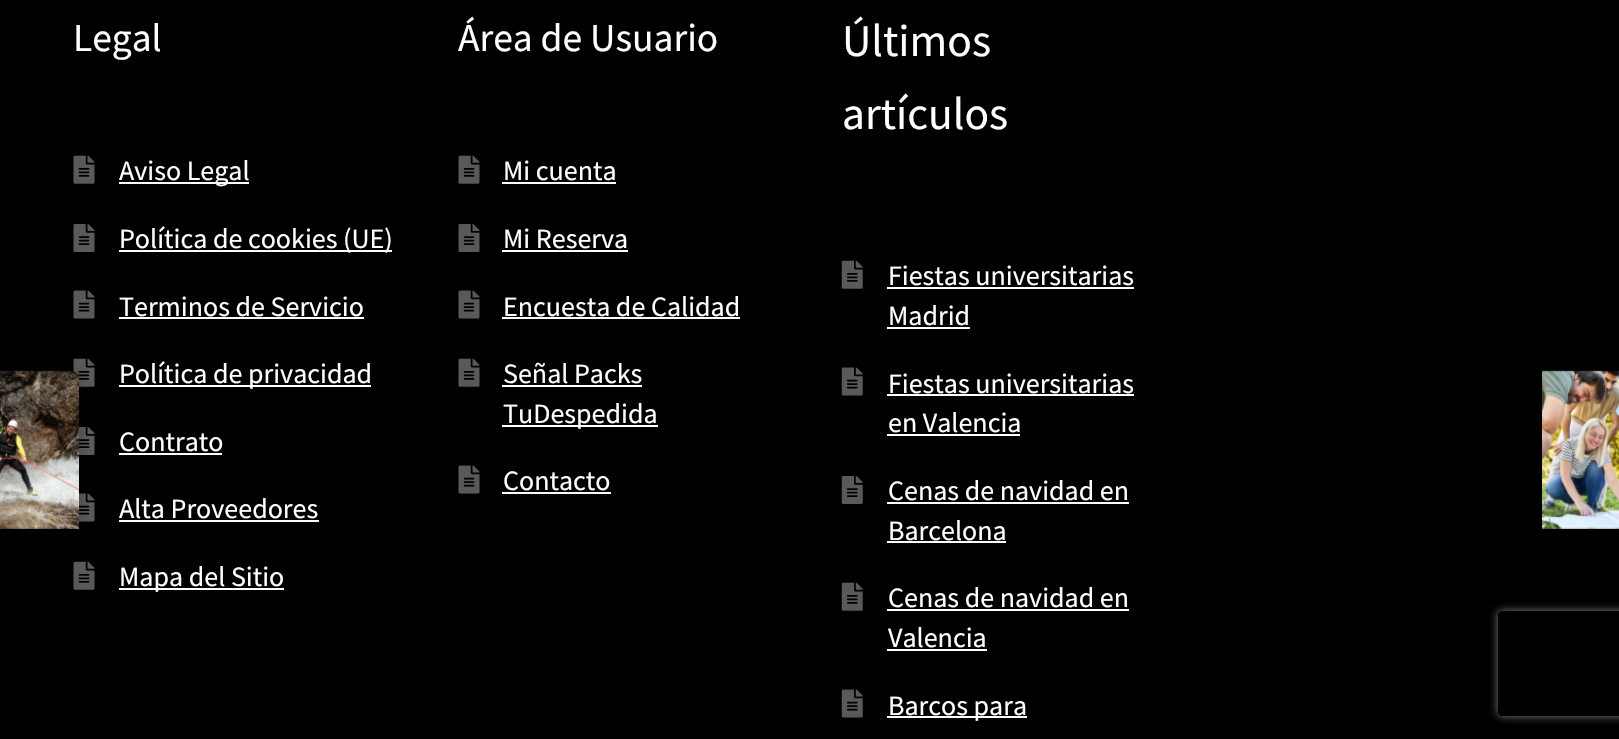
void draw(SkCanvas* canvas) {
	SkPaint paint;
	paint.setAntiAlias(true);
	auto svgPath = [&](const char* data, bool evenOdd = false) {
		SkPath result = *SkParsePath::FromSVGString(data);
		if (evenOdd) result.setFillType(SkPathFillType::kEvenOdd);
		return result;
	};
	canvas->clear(0xff000000);
	SkFont f1(fontMgr->matchFamilyStyle("Source Sans Pro", SkFontStyle::Normal()), 39.5);
	f1.setSubpixel(true);
	paint.setColor(0xffffffff);
	canvas->drawString("Legal", 73, 51, f1, paint);
	canvas->drawImageRect(SkImages::DeferredFromEncodedData(SkData::MakeFromFileName("img1.png")), SkRect::MakeXYWH(73, 155, 22, 29), SkSamplingOptions());
	canvas->drawRect(SkRect::MakeXYWH(119, 182, 130, 2), paint);
	SkFont f2(fontMgr->matchFamilyStyle("Source Sans Pro", SkFontStyle::Normal()), 28);
	f2.setSubpixel(true);
	canvas->drawString("Aviso Legal", 119, 180, f2, paint);
	canvas->drawImageRect(SkImages::DeferredFromEncodedData(SkData::MakeFromFileName("img2.png")), SkRect::MakeXYWH(73, 224, 22, 28), SkSamplingOptions());
	canvas->drawRect(SkRect::MakeXYWH(119, 250, 273, 2), paint);
	canvas->drawString("Política de cookies (UE)", 119, 248, f2, paint);
	canvas->drawImageRect(SkImages::DeferredFromEncodedData(SkData::MakeFromFileName("img3.png")), SkRect::MakeXYWH(73, 290, 22, 29), SkSamplingOptions());
	canvas->drawString("Terminos de Servicio", 119, 316, f2, paint);
	canvas->drawRect(SkRect::MakeXYWH(119, 317, 245, 2), paint);
	canvas->drawImageRect(SkImages::DeferredFromEncodedData(SkData::MakeFromFileName("img1.png")), SkRect::MakeXYWH(73, 358, 22, 29), SkSamplingOptions());
	canvas->drawRect(SkRect::MakeXYWH(119, 385, 252, 2), paint);
	canvas->drawString("Política de privacidad", 119, 383, f2, paint);
	canvas->drawImageRect(SkImages::DeferredFromEncodedData(SkData::MakeFromFileName("img4.png")), SkRect::MakeXYWH(79, 427, 16, 28), SkSamplingOptions());
	canvas->drawString("Contrato", 119, 451, f2, paint);
	canvas->drawRect(SkRect::MakeXYWH(119, 453, 103, 2), paint);
	canvas->drawImageRect(SkImages::DeferredFromEncodedData(SkData::MakeFromFileName("img5.png")), SkRect::MakeXYWH(79, 493, 16, 29), SkSamplingOptions());
	canvas->drawString("Alta Proveedores", 119, 518, f2, paint);
	canvas->drawRect(SkRect::MakeXYWH(119, 520, 200, 2), paint);
	canvas->drawImageRect(SkImages::DeferredFromEncodedData(SkData::MakeFromFileName("img1.png")), SkRect::MakeXYWH(73, 561, 22, 29), SkSamplingOptions());
	canvas->drawRect(SkRect::MakeXYWH(119, 588, 165, 2), paint);
	canvas->drawString("Mapa del Sitio", 119, 586, f2, paint);
	canvas->drawString("Área de Usuario", 458, 51, f1, paint);
	canvas->drawImageRect(SkImages::DeferredFromEncodedData(SkData::MakeFromFileName("img1.png")), SkRect::MakeXYWH(458, 155, 22, 29), SkSamplingOptions());
	canvas->drawString("Mi cuenta", 503, 180, f2, paint);
	canvas->drawRect(SkRect::MakeXYWH(502, 182, 114, 2), paint);
	canvas->drawImageRect(SkImages::DeferredFromEncodedData(SkData::MakeFromFileName("img2.png")), SkRect::MakeXYWH(458, 224, 22, 28), SkSamplingOptions());
	canvas->drawString("Mi Reserva", 503, 248, f2, paint);
	canvas->drawRect(SkRect::MakeXYWH(502, 250, 126, 2), paint);
	canvas->drawImageRect(SkImages::DeferredFromEncodedData(SkData::MakeFromFileName("img3.png")), SkRect::MakeXYWH(458, 290, 22, 29), SkSamplingOptions());
	canvas->drawString("Encuesta de Calidad", 503, 316, f2, paint);
	canvas->drawRect(SkRect::MakeXYWH(502, 317, 238, 2), paint);
	canvas->drawImageRect(SkImages::DeferredFromEncodedData(SkData::MakeFromFileName("img1.png")), SkRect::MakeXYWH(458, 358, 22, 29), SkSamplingOptions());
	canvas->drawString("Señal Packs", 503, 383, f2, paint);
	canvas->drawRect(SkRect::MakeXYWH(502, 385, 140, 2), paint);
	canvas->drawRect(SkRect::MakeXYWH(502, 425, 156, 2), paint);
	canvas->drawString("TuDespedida", 503, 423, f2, paint);
	canvas->drawImageRect(SkImages::DeferredFromEncodedData(SkData::MakeFromFileName("img3.png")), SkRect::MakeXYWH(458, 465, 22, 29), SkSamplingOptions());
	canvas->drawString("Contacto", 503, 490, f2, paint);
	canvas->drawRect(SkRect::MakeXYWH(502, 492, 109, 2), paint);
	SkFont f3(fontMgr->matchFamilyStyle("Source Sans Pro", SkFontStyle::Normal()), 45.5);
	f3.setSubpixel(true);
	canvas->drawString("Últimos", 842, 56, f3, paint);
	canvas->drawString("artículos", 842, 129, f3, paint);
	canvas->drawImageRect(SkImages::DeferredFromEncodedData(SkData::MakeFromFileName("img6.png")), SkRect::MakeXYWH(841, 260, 22, 29), SkSamplingOptions());
	canvas->drawString("Fiestas universitarias", 888, 285, f2, paint);
	canvas->drawRect(SkRect::MakeXYWH(887, 287, 247, 2), paint);
	canvas->drawString("Madrid", 888, 325, f2, paint);
	canvas->drawRect(SkRect::MakeXYWH(887, 327, 83, 2), paint);
	canvas->drawImageRect(SkImages::DeferredFromEncodedData(SkData::MakeFromFileName("img7.png")), SkRect::MakeXYWH(841, 367, 22, 29), SkSamplingOptions());
	canvas->drawString("Fiestas universitarias", 888, 393, f2, paint);
	canvas->drawRect(SkRect::MakeXYWH(887, 394, 247, 2), paint);
	canvas->drawString("en Valencia", 888, 432, f2, paint);
	canvas->drawRect(SkRect::MakeXYWH(887, 434, 133, 2), paint);
	canvas->drawImageRect(SkImages::DeferredFromEncodedData(SkData::MakeFromFileName("img8.png")), SkRect::MakeXYWH(841, 476, 22, 28), SkSamplingOptions());
	canvas->drawString("Cenas de navidad en", 888, 500, f2, paint);
	canvas->drawRect(SkRect::MakeXYWH(887, 502, 242, 2), paint);
	canvas->drawString("Barcelona", 888, 540, f2, paint);
	canvas->drawRect(SkRect::MakeXYWH(887, 541, 119, 2), paint);
	canvas->drawImageRect(SkImages::DeferredFromEncodedData(SkData::MakeFromFileName("img6.png")), SkRect::MakeXYWH(841, 582, 22, 29), SkSamplingOptions());
	canvas->drawString("Cenas de navidad en", 888, 607, f2, paint);
	canvas->drawRect(SkRect::MakeXYWH(887, 609, 242, 2), paint);
	canvas->drawString("Valencia", 888, 647, f2, paint);
	canvas->drawRect(SkRect::MakeXYWH(887, 649, 100, 2), paint);
	canvas->drawImageRect(SkImages::DeferredFromEncodedData(SkData::MakeFromFileName("img7.png")), SkRect::MakeXYWH(841, 689, 22, 29), SkSamplingOptions());
	canvas->drawRect(SkRect::MakeXYWH(887, 716, 140, 2), paint);
	canvas->drawString("Barcos para", 888, 715, f2, paint);
	paint.setColor(0x33000000);
	paint.setMaskFilter(SkMaskFilter::MakeBlur(kNormal_SkBlurStyle, 4.5));
	canvas->drawRect(SkRect::MakeXYWH(-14, 371, 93, 158), paint);
	paint.setMaskFilter(nullptr);
	canvas->drawImageRect(SkImages::DeferredFromEncodedData(SkData::MakeFromFileName("img9.png")), SkRect::MakeXYWH(0, 370, 79, 159), SkSamplingOptions());
	canvas->drawImageRect(SkImages::DeferredFromEncodedData(SkData::MakeFromFileName("img10.png")), SkRect::MakeXYWH(1542, 370, 77, 159), SkSamplingOptions());
	canvas->save();
	canvas->clipPath(svgPath("M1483 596H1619V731H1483ZM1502 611H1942C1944 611 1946 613 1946 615V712C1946 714 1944 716 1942 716H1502C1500 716 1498 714 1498 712V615C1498 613 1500 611 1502 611Z", true), true);
	paint.setColor(0xff808080);
	paint.setMaskFilter(SkMaskFilter::MakeBlur(kNormal_SkBlurStyle, 4.5));
	canvas->drawRoundRect(SkRect::MakeXYWH(1498, 611, 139, 105), 4, 4, paint);
	paint.setMaskFilter(nullptr);
	canvas->restore();
}
